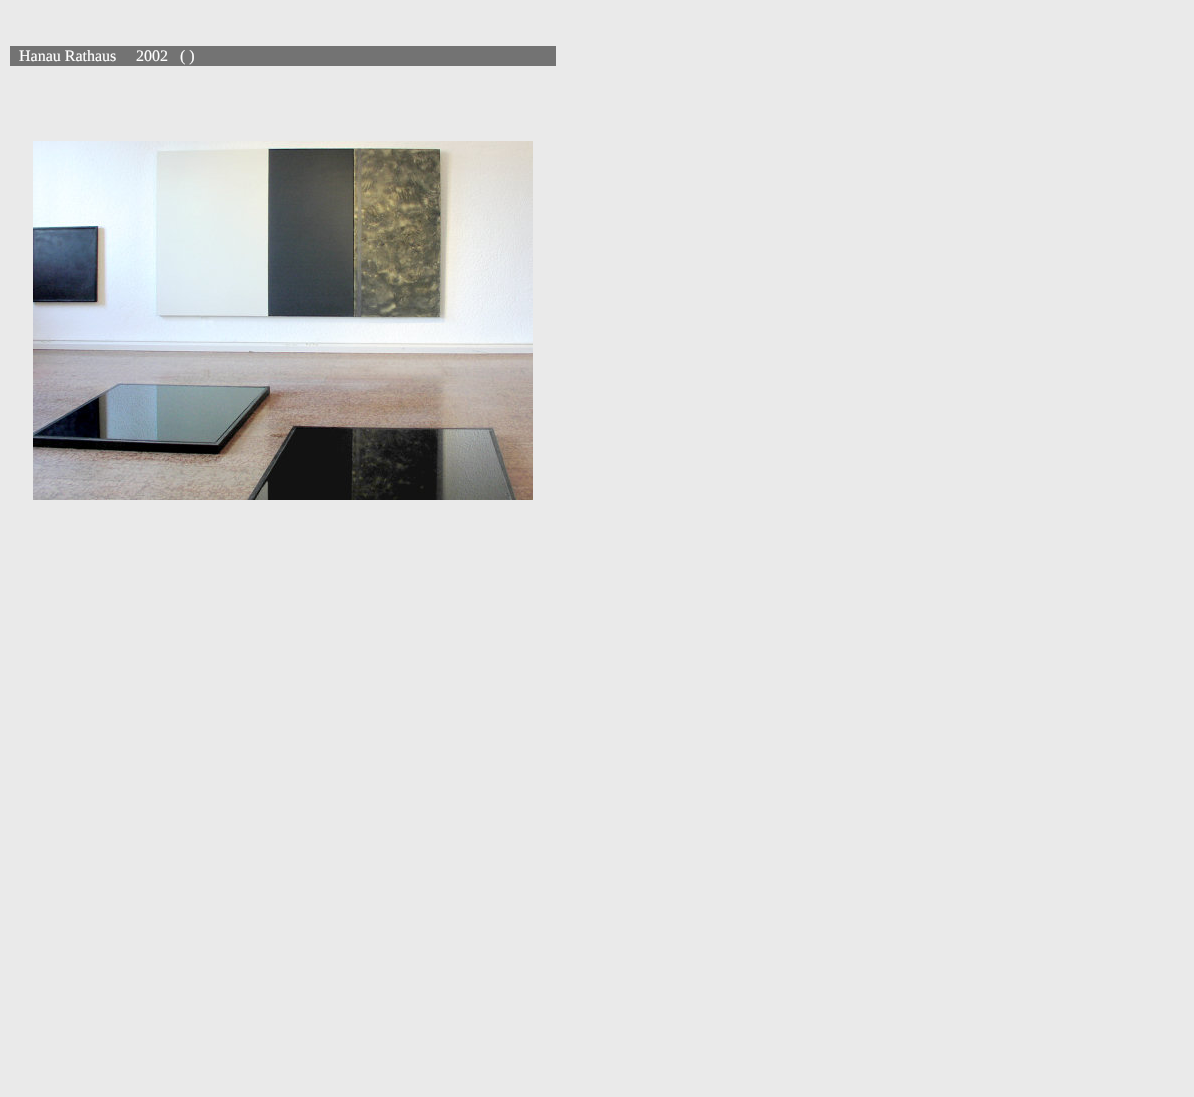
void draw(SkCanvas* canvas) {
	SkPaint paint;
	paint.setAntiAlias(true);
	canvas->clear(0xffeaeaea);
	paint.setColor(0xff737373);
	canvas->drawRect(SkRect::MakeXYWH(10, 46, 546, 20), paint);
	SkFont f1(fontMgr->matchFamilyStyle("Liberation Serif", SkFontStyle::Normal()), 16);
	f1.setSubpixel(true);
	paint.setColor(0xffffffff);
	canvas->drawString("Hanau Rathaus", 19, 61, f1, paint);
	canvas->drawString("2002   ( )", 136, 61, f1, paint);
	canvas->drawImageRect(SkImages::DeferredFromEncodedData(SkData::MakeFromFileName("img1.png")), SkRect::MakeXYWH(33, 141, 500, 359), SkSamplingOptions());
}
